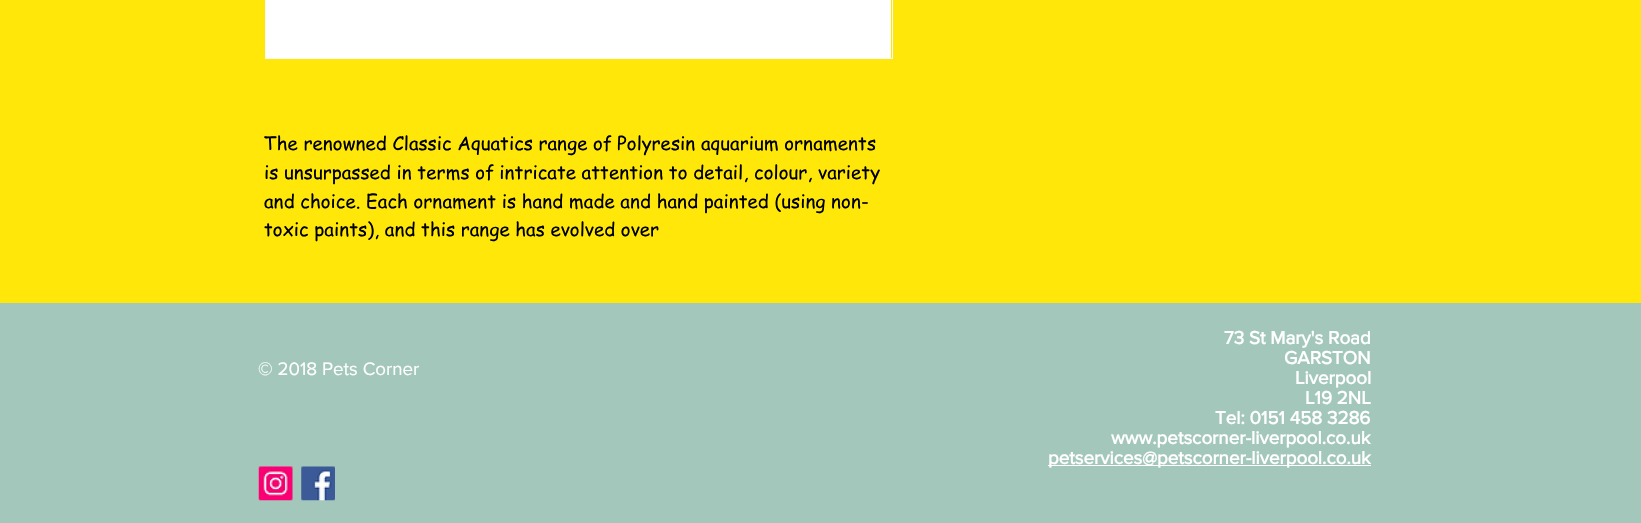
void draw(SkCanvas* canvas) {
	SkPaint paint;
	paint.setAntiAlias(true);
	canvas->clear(0xffffe70a);
	paint.setStroke(true);
	paint.setStrokeWidth(1);
	paint.setColor(0xfff7f7f7);
	canvas->drawRect(SkRect::MakeXYWH(265.5, -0.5, 627, 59), paint);
	paint.setStroke(false);
	paint.setColor(0xffffffff);
	canvas->drawRect(SkRect::MakeXYWH(266, 0, 625, 58), paint);
	SkFont f1(fontMgr->matchFamilyStyle("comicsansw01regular", SkFontStyle::Normal()), 18.75);
	f1.setSubpixel(true);
	paint.setColor(0xff000000);
	canvas->drawString("The renowned Classic Aquatics range of Polyresin aquarium ornaments", 264, 150, f1, paint);
	canvas->drawString("is unsurpassed in terms of intricate attention to detail, colour, variety", 264, 179, f1, paint);
	canvas->drawString("and choice. Each ornament is hand made and hand painted (using non-", 264, 208, f1, paint);
	canvas->drawString("toxic paints), and this range has evolved over", 264, 236, f1, paint);
	paint.setColor(0xffa3c7ba);
	canvas->drawRect(SkRect::MakeXYWH(0, 303, 1641, 220), paint);
	SkFont f2(fontMgr->matchFamilyStyle("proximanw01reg", SkFontStyle::Normal()), 18.75);
	f2.setSubpixel(true);
	paint.setColor(0xffffffff);
	canvas->drawString("© 2018 Pets Corner", 258, 375, f2, paint);
	SkFont f3(fontMgr->matchFamilyStyle("proximanw01reg", SkFontStyle::Bold()), 18.75);
	f3.setSubpixel(true);
	canvas->drawString("73 St Mary's Road", 1224, 344, f3, paint);
	canvas->drawString("GARSTON", 1284, 364, f3, paint);
	canvas->drawString("Liverpool", 1295, 384, f3, paint);
	canvas->drawString("L19 2NL", 1305, 404, f3, paint);
	canvas->drawString("Tel: 0151 458 3286", 1215, 424, f3, paint);
	canvas->drawString("www.petscorner-liverpool.co.uk", 1111, 444, f3, paint);
	canvas->drawRect(SkRect::MakeXYWH(1048, 465, 323, 1), paint);
	canvas->drawString("petservices@petscorner-liverpool.co.uk", 1048, 464, f3, paint);
	canvas->drawImageRect(SkImages::DeferredFromEncodedData(SkData::MakeFromFileName("img1.png")), SkRect::MakeXYWH(258, 466, 35, 35), SkSamplingOptions());
	canvas->drawImageRect(SkImages::DeferredFromEncodedData(SkData::MakeFromFileName("img2.png")), SkRect::MakeXYWH(301, 466, 34, 35), SkSamplingOptions());
}
